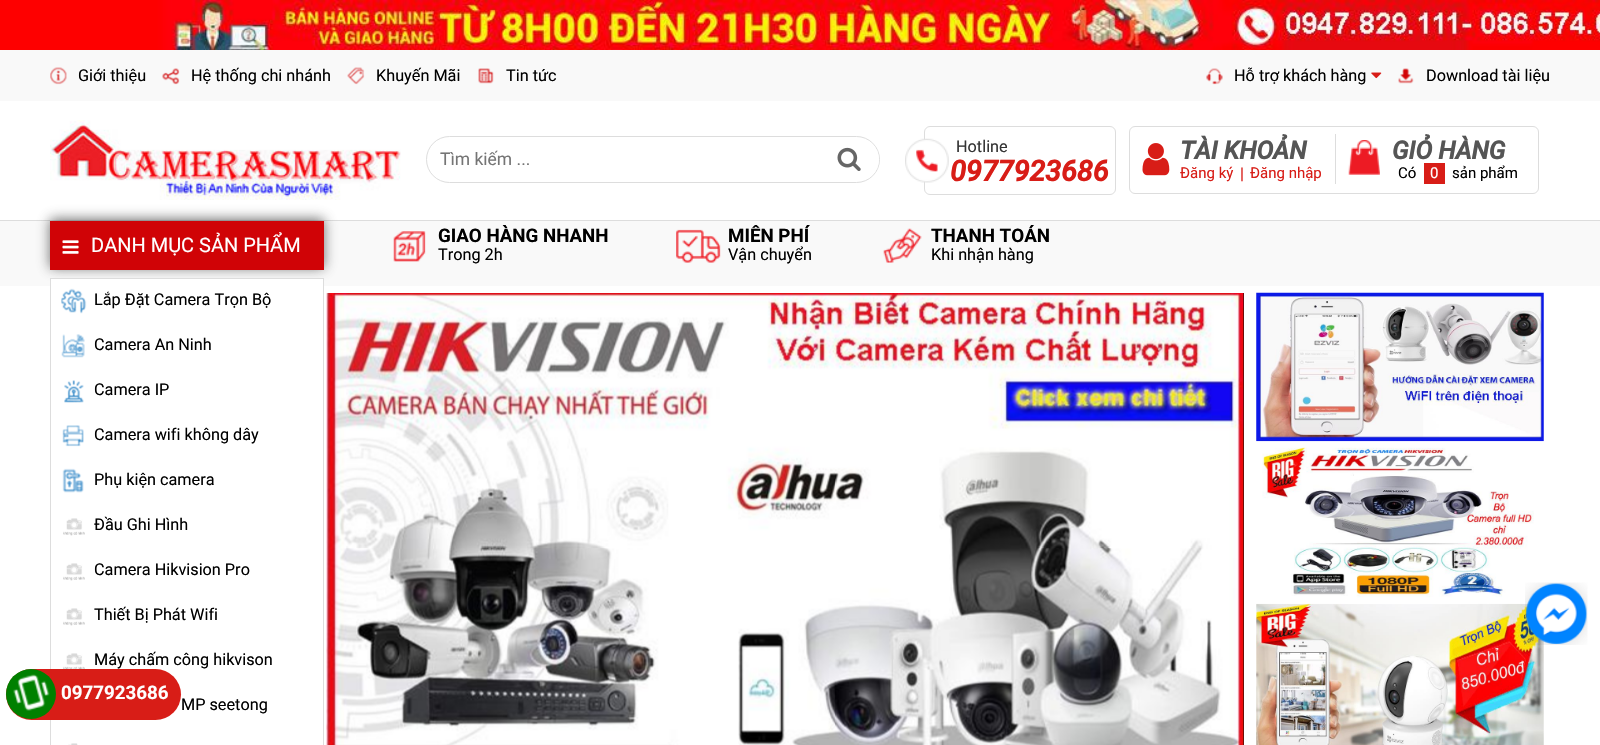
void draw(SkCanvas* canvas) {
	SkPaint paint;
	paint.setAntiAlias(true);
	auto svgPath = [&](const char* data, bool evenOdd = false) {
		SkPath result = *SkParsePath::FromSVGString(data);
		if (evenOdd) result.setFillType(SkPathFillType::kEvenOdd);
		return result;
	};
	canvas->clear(0xffffffff);
	canvas->drawImageRect(SkImages::DeferredFromEncodedData(SkData::MakeFromFileName("img1.png")), SkRect::MakeXYWH(0, 0, 1600, 50), SkSamplingOptions());
	paint.setColor(0xfff9f9f9);
	canvas->drawRect(SkRect::MakeXYWH(0, 50, 1600, 51), paint);
	canvas->drawImageRect(SkImages::DeferredFromEncodedData(SkData::MakeFromFileName("img2.png")), SkRect::MakeXYWH(50, 67, 17, 18), SkSamplingOptions());
	SkFont f1(fontMgr->matchFamilyStyle("Roboto", SkFontStyle::Normal()), 16.25);
	f1.setSubpixel(true);
	paint.setColor(0xff000000);
	canvas->drawString("Giới thiệu", 78, 81, f1, paint);
	canvas->drawImageRect(SkImages::DeferredFromEncodedData(SkData::MakeFromFileName("img3.png")), SkRect::MakeXYWH(162, 68, 18, 17), SkSamplingOptions());
	canvas->drawString("Hệ thống chi nhánh", 191, 81, f1, paint);
	canvas->drawImageRect(SkImages::DeferredFromEncodedData(SkData::MakeFromFileName("img4.png")), SkRect::MakeXYWH(347, 67, 18, 18), SkSamplingOptions());
	canvas->drawString("Khuyến Mãi", 376, 81, f1, paint);
	canvas->drawImageRect(SkImages::DeferredFromEncodedData(SkData::MakeFromFileName("img5.png")), SkRect::MakeXYWH(478, 68, 16, 16), SkSamplingOptions());
	canvas->drawString("Tin tức", 506, 81, f1, paint);
	canvas->drawImageRect(SkImages::DeferredFromEncodedData(SkData::MakeFromFileName("img6.png")), SkRect::MakeXYWH(1206, 68, 17, 17), SkSamplingOptions());
	canvas->drawString("Hỗ trợ khách hàng", 1234, 81, f1, paint);
	canvas->drawImageRect(SkImages::DeferredFromEncodedData(SkData::MakeFromFileName("img7.png")), SkRect::MakeXYWH(1371, 72, 11, 7), SkSamplingOptions());
	canvas->drawImageRect(SkImages::DeferredFromEncodedData(SkData::MakeFromFileName("img8.png")), SkRect::MakeXYWH(1398, 68, 16, 16), SkSamplingOptions());
	canvas->drawString("Download tài liệu", 1426, 81, f1, paint);
	canvas->drawImageRect(SkImages::DeferredFromEncodedData(SkData::MakeFromFileName("img9.png")), SkRect::MakeXYWH(50, 120, 351, 80), SkSamplingOptions());
	paint.setStroke(true);
	paint.setStrokeWidth(1);
	paint.setColor(0xffdddddd);
	canvas->drawRoundRect(SkRect::MakeXYWH(426.5, 136.5, 453, 46), 23, 23, paint);
	SkFont f2(fontMgr->matchFamilyStyle("Roboto", SkFontStyle::Normal()), 17.5);
	f2.setSubpixel(true);
	paint.setStroke(false);
	paint.setColor(0xff757575);
	canvas->drawString("Tìm kiếm ...", 440, 165, f2, paint);
	paint.setColor(0xffffffff);
	canvas->drawPath(svgPath("M824 138H857.5C869.5 138 879 147.5 879 159.5C879 171.5 869.5 181 857.5 181H824C821 181 819 179 819 176V143C819 140 821 138 824 138Z"), paint);
	canvas->drawImageRect(SkImages::DeferredFromEncodedData(SkData::MakeFromFileName("img10.png")), SkRect::MakeXYWH(837, 147, 24, 24), SkSamplingOptions());
	paint.setStroke(true);
	paint.setColor(0xffdddddd);
	canvas->drawRoundRect(SkRect::MakeXYWH(924.5, 126.5, 191, 68), 5.5, 5.5, paint);
	canvas->drawImageRect(SkImages::DeferredFromEncodedData(SkData::MakeFromFileName("img11.png")), SkRect::MakeXYWH(905, 138, 44, 45), SkSamplingOptions());
	paint.setStroke(false);
	paint.setColor(0xff333333);
	canvas->drawString("Hotline", 956, 152, f1, paint);
	SkFont f3(fontMgr->matchFamilyStyle("Roboto", SkFontStyle::BoldItalic()), 28.75);
	f3.setSubpixel(true);
	paint.setColor(0xffd81d17);
	canvas->drawString("0977923686", 950, 181, f3, paint);
	paint.setStroke(true);
	paint.setColor(0xffdddddd);
	canvas->drawRoundRect(SkRect::MakeXYWH(1129.5, 126.5, 409, 67), 5.5, 5.5, paint);
	canvas->drawImageRect(SkImages::DeferredFromEncodedData(SkData::MakeFromFileName("img12.png")), SkRect::MakeXYWH(1142, 143, 28, 33), SkSamplingOptions());
	SkFont f4(fontMgr->matchFamilyStyle("Roboto", SkFontStyle::BoldItalic()), 25);
	f4.setSubpixel(true);
	paint.setStroke(false);
	paint.setColor(0xff555555);
	canvas->drawString("TÀI KHOẢN", 1180, 159, f4, paint);
	SkFont f5(fontMgr->matchFamilyStyle("Roboto", SkFontStyle::Normal()), 15);
	f5.setSubpixel(true);
	paint.setColor(0xffd81d17);
	canvas->drawString("Đăng ký", 1180, 178, f5, paint);
	canvas->drawString("|", 1240, 179, f1, paint);
	canvas->drawString("Đăng nhập", 1250, 178, f5, paint);
	paint.setColor(0xffdddddd);
	canvas->drawRect(SkRect::MakeXYWH(1335, 134, 1, 50), paint);
	canvas->drawImageRect(SkImages::DeferredFromEncodedData(SkData::MakeFromFileName("img13.png")), SkRect::MakeXYWH(1348, 140, 32, 35), SkSamplingOptions());
	paint.setColor(0xff555555);
	canvas->drawString("GIỎ HÀNG", 1392, 159, f4, paint);
	paint.setColor(0xff000000);
	canvas->drawString("Có", 1398, 178, f5, paint);
	paint.setColor(0xffd81d17);
	canvas->drawRect(SkRect::MakeXYWH(1424, 163, 21, 21), paint);
	paint.setColor(0xffffffff);
	canvas->drawString("0", 1430, 178, f5, paint);
	paint.setColor(0xff000000);
	canvas->drawString("sản phẩm", 1452, 178, f5, paint);
	paint.setColor(0xfff9f9f9);
	canvas->drawRect(SkRect::MakeXYWH(0, 221, 1600, 65), paint);
	paint.setColor(0xffdddddd);
	canvas->drawRect(SkRect::MakeXYWH(0, 220, 1600, 1), paint);
	paint.setColor(0xb3323232);
	paint.setMaskFilter(SkMaskFilter::MakeBlur(kNormal_SkBlurStyle, 6));
	canvas->drawRect(SkRect::MakeXYWH(50, 219, 274, 49), paint);
	paint.setMaskFilter(nullptr);
	paint.setColor(0xffd00306);
	canvas->drawRect(SkRect::MakeXYWH(50, 221, 274, 49), paint);
	canvas->drawImageRect(SkImages::DeferredFromEncodedData(SkData::MakeFromFileName("img14.png")), SkRect::MakeXYWH(62, 240, 17, 14), SkSamplingOptions());
	SkFont f6(fontMgr->matchFamilyStyle("Roboto", SkFontStyle::Normal()), 20);
	f6.setSubpixel(true);
	paint.setColor(0xffffffff);
	canvas->drawString("DANH MỤC SẢN PHẨM", 91, 252, f6, paint);
	canvas->drawRect(SkRect::MakeXYWH(51, 279, 272, 7), paint);
	paint.setStroke(true);
	paint.setColor(0xffdddddd);
	canvas->drawRect(SkRect::MakeXYWH(50.5, 278.5, 273, 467), paint);
	canvas->drawImageRect(SkImages::DeferredFromEncodedData(SkData::MakeFromFileName("img15.png")), SkRect::MakeXYWH(61, 288, 26, 26), SkSamplingOptions());
	paint.setStroke(false);
	paint.setColor(0xff000000);
	canvas->drawString("Lắp Đặt Camera Trọn Bộ", 94, 305, f1, paint);
	canvas->drawImageRect(SkImages::DeferredFromEncodedData(SkData::MakeFromFileName("img16.png")), SkRect::MakeXYWH(61, 334, 24, 24), SkSamplingOptions());
	canvas->drawString("Camera An Ninh", 94, 350, f1, paint);
	canvas->drawImageRect(SkImages::DeferredFromEncodedData(SkData::MakeFromFileName("img17.png")), SkRect::MakeXYWH(64, 380, 20, 23), SkSamplingOptions());
	canvas->drawString("Camera IP", 94, 395, f1, paint);
	canvas->drawImageRect(SkImages::DeferredFromEncodedData(SkData::MakeFromFileName("img18.png")), SkRect::MakeXYWH(62, 425, 22, 22), SkSamplingOptions());
	canvas->drawString("Camera wifi không dây", 94, 440, f1, paint);
	canvas->drawImageRect(SkImages::DeferredFromEncodedData(SkData::MakeFromFileName("img19.png")), SkRect::MakeXYWH(62, 468, 22, 25), SkSamplingOptions());
	canvas->drawString("Phụ kiện camera", 94, 485, f1, paint);
	canvas->drawImageRect(SkImages::DeferredFromEncodedData(SkData::MakeFromFileName("img20.png")), SkRect::MakeXYWH(63, 518, 22, 18), SkSamplingOptions());
	canvas->drawString("Đầu Ghi Hình", 94, 530, f1, paint);
	canvas->drawImageRect(SkImages::DeferredFromEncodedData(SkData::MakeFromFileName("img20.png")), SkRect::MakeXYWH(63, 563, 22, 18), SkSamplingOptions());
	canvas->drawString("Camera Hikvision Pro", 94, 575, f1, paint);
	canvas->drawImageRect(SkImages::DeferredFromEncodedData(SkData::MakeFromFileName("img20.png")), SkRect::MakeXYWH(63, 608, 22, 18), SkSamplingOptions());
	canvas->drawString("Thiết Bị Phát Wifi", 94, 620, f1, paint);
	canvas->drawImageRect(SkImages::DeferredFromEncodedData(SkData::MakeFromFileName("img21.png")), SkRect::MakeXYWH(63, 653, 22, 16), SkSamplingOptions());
	canvas->drawString("Máy chấm công hikvison", 94, 665, f1, paint);
	canvas->drawString("MP seetong", 181, 710, f1, paint);
	canvas->drawImageRect(SkImages::DeferredFromEncodedData(SkData::MakeFromFileName("img22.png")), SkRect::MakeXYWH(68, 743, 10, 2), SkSamplingOptions());
	canvas->drawImageRect(SkImages::DeferredFromEncodedData(SkData::MakeFromFileName("img23.png")), SkRect::MakeXYWH(393, 231, 33, 31), SkSamplingOptions());
	SkFont f7(fontMgr->matchFamilyStyle("Roboto", SkFontStyle::Bold()), 18.75);
	f7.setSubpixel(true);
	canvas->drawString("GIAO HÀNG NHANH", 438, 242, f7, paint);
	canvas->drawString("Trong 2h", 438, 260, f1, paint);
	canvas->drawImageRect(SkImages::DeferredFromEncodedData(SkData::MakeFromFileName("img24.png")), SkRect::MakeXYWH(676, 229, 45, 34), SkSamplingOptions());
	canvas->drawString("MIÊN PHÍ", 728, 242, f7, paint);
	canvas->drawString("Vận chuyển", 728, 260, f1, paint);
	canvas->drawImageRect(SkImages::DeferredFromEncodedData(SkData::MakeFromFileName("img25.png")), SkRect::MakeXYWH(883, 228, 39, 35), SkSamplingOptions());
	canvas->drawString("THANH TOÁN", 931, 242, f7, paint);
	canvas->drawString("Khi nhận hàng", 931, 260, f1, paint);
	paint.setColor(0xff0f0802);
	canvas->drawRect(SkRect::MakeXYWH(1243, 293, 1, 452), paint);
	canvas->drawImageRect(SkImages::DeferredFromEncodedData(SkData::MakeFromFileName("img26.png")), SkRect::MakeXYWH(326, 293, 918, 452), SkSamplingOptions());
	canvas->drawImageRect(SkImages::DeferredFromEncodedData(SkData::MakeFromFileName("img27.png")), SkRect::MakeXYWH(1256, 292, 288, 150), SkSamplingOptions());
	canvas->drawImageRect(SkImages::DeferredFromEncodedData(SkData::MakeFromFileName("img28.png")), SkRect::MakeXYWH(1262, 447, 272, 151), SkSamplingOptions());
	canvas->drawImageRect(SkImages::DeferredFromEncodedData(SkData::MakeFromFileName("img29.png")), SkRect::MakeXYWH(1256, 603, 288, 142), SkSamplingOptions());
	canvas->drawImageRect(SkImages::DeferredFromEncodedData(SkData::MakeFromFileName("img30.png")), SkRect::MakeXYWH(1525, 582, 63, 63), SkSamplingOptions());
	paint.setColor(0xffd81d17);
	canvas->drawRoundRect(SkRect::MakeXYWH(6, 669, 175, 51), 25.5, 25.5, paint);
	paint.setColor(0xff008000);
	canvas->drawCircle(31, 694, 25, paint);
	canvas->drawImageRect(SkImages::DeferredFromEncodedData(SkData::MakeFromFileName("img31.png")), SkRect::MakeXYWH(13, 674, 37, 37), SkSamplingOptions());
	paint.setColor(0xffffffff);
	canvas->drawString("0977923686", 61, 699, f7, paint);
}
